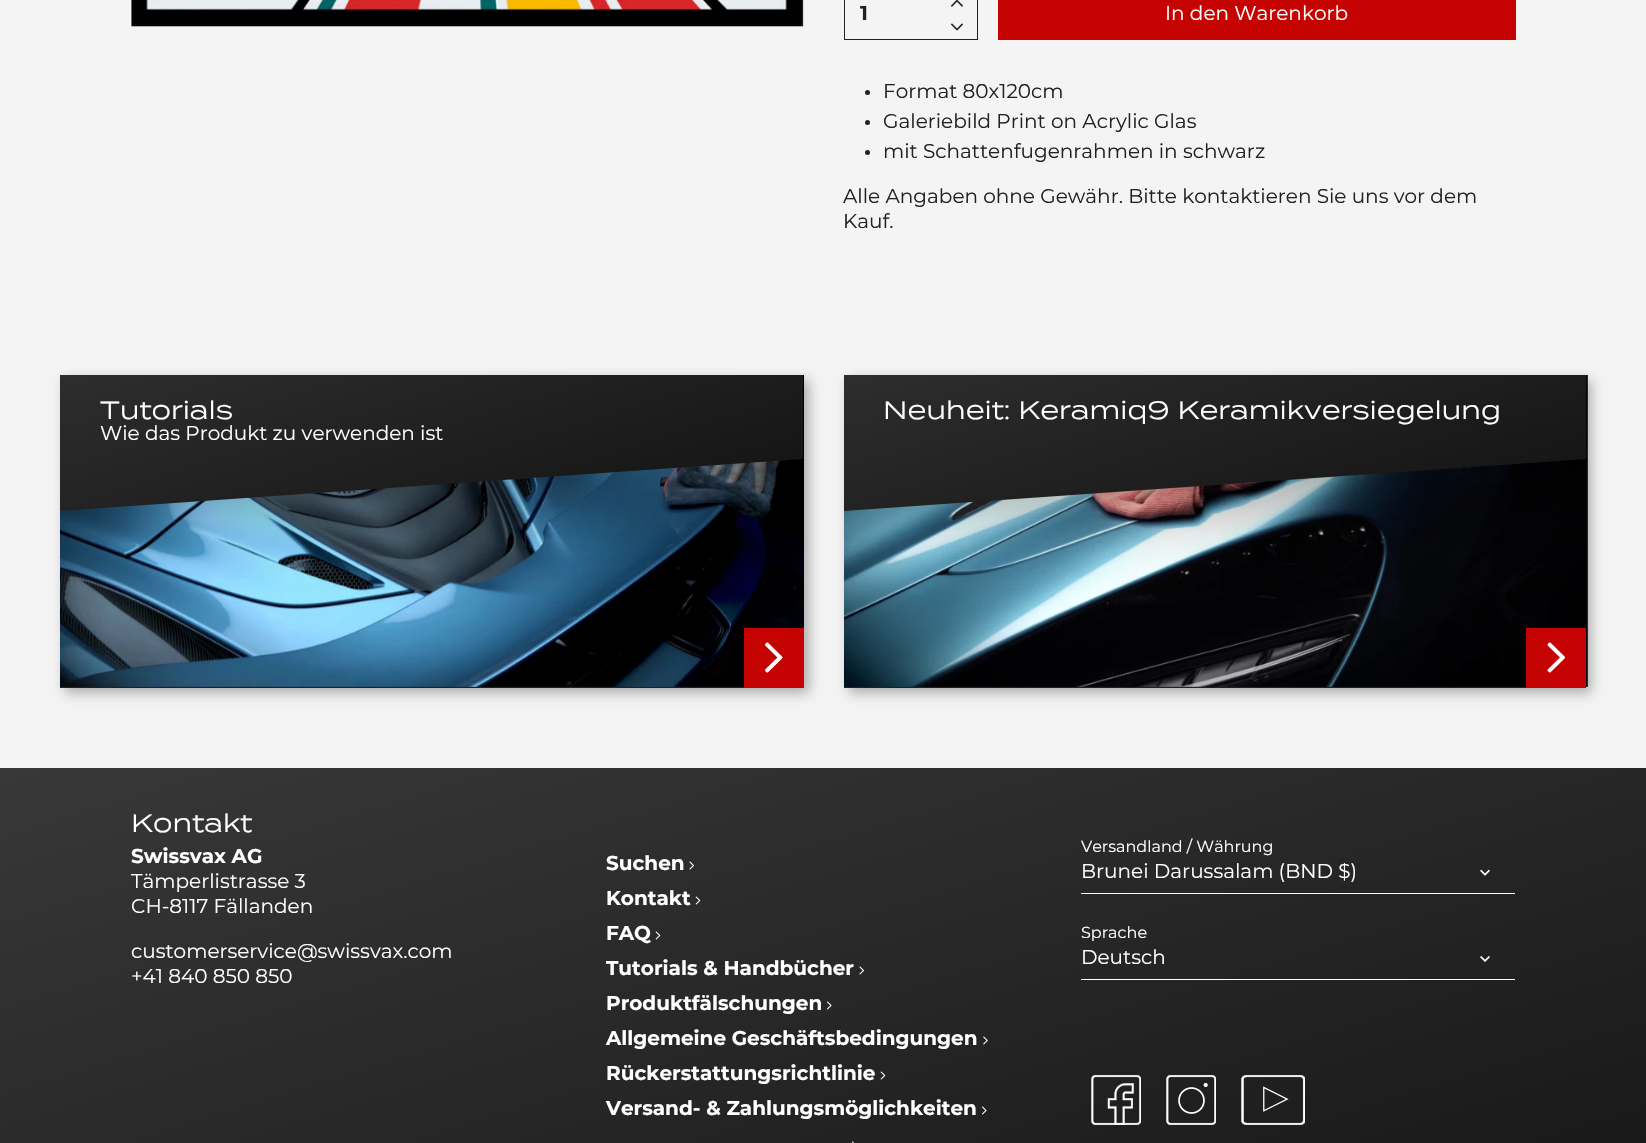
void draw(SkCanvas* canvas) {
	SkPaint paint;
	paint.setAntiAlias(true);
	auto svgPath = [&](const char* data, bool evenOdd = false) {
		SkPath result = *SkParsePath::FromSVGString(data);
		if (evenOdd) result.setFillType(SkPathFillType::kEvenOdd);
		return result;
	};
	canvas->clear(0xfff4f4f4);
	canvas->drawImageRect(SkImages::DeferredFromEncodedData(SkData::MakeFromFileName("img1.png")), SkRect::MakeXYWH(131, 0, 673, 27), SkSamplingOptions());
	paint.setStroke(true);
	paint.setStrokeWidth(1);
	paint.setColor(0xff212121);
	canvas->drawRect(SkRect::MakeXYWH(844.5, -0.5, 133, 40), paint);
	SkFont f1(fontMgr->matchFamilyStyle("Montserrat", SkFontStyle::Bold()), 20);
	f1.setSubpixel(true);
	paint.setStroke(false);
	canvas->drawString("1", 860, 20, f1, paint);
	canvas->drawImageRect(SkImages::DeferredFromEncodedData(SkData::MakeFromFileName("img2.png")), SkRect::MakeXYWH(951, 0, 12, 7), SkSamplingOptions());
	canvas->drawImageRect(SkImages::DeferredFromEncodedData(SkData::MakeFromFileName("img3.png")), SkRect::MakeXYWH(951, 23, 12, 8), SkSamplingOptions());
	paint.setColor(0xffc60303);
	canvas->drawRect(SkRect::MakeXYWH(998, 0, 518, 40), paint);
	SkFont f2(fontMgr->matchFamilyStyle("Montserrat", SkFontStyle::Normal()), 20);
	f2.setSubpixel(true);
	paint.setColor(0xffffffff);
	canvas->drawString("In den Warenkorb", 1165, 20, f2, paint);
	paint.setColor(0xff212121);
	canvas->drawCircle(867.5, 92.5, 2.5, paint);
	canvas->drawString("Format 80x120cm", 883, 98, f2, paint);
	canvas->drawCircle(867.5, 122.5, 2.5, paint);
	canvas->drawString("Galeriebild Print on Acrylic Glas", 883, 128, f2, paint);
	canvas->drawCircle(867.5, 152.5, 2.5, paint);
	canvas->drawString("mit Schattenfugenrahmen in schwarz", 883, 158, f2, paint);
	canvas->drawString("Alle Angaben ohne Gewähr. Bitte kontaktieren Sie uns vor dem", 843, 203, f2, paint);
	canvas->drawString("Kauf.", 843, 228, f2, paint);
	paint.setColor(0x4d000000);
	paint.setMaskFilter(SkMaskFilter::MakeBlur(kNormal_SkBlurStyle, 6));
	canvas->drawRect(SkRect::MakeXYWH(65, 380, 744, 313), paint);
	paint.setMaskFilter(nullptr);
	paint.setColor(0xff212121);
	canvas->drawRect(SkRect::MakeXYWH(60, 686, 684, 2), paint);
	canvas->drawImageRect(SkImages::DeferredFromEncodedData(SkData::MakeFromFileName("img4.png")), SkRect::MakeXYWH(60, 375, 744, 312), SkSamplingOptions());
	canvas->save();
	canvas->clipRect(SkRect::MakeXYWH(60, 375, 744, 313));
	paint.setColor(0x4d000000);
	paint.setMaskFilter(SkMaskFilter::MakeBlur(kNormal_SkBlurStyle, 31));
	canvas->drawRect(SkRect::MakeXYWH(60, 356, 744, 160), paint);
	paint.setMaskFilter(nullptr);
	canvas->restore();
	canvas->save();
	canvas->clipRect(SkRect::MakeXYWH(60, 375, 744, 313));
	{
		const SkColor colors[] = {0xff313131, 0xff141414};
		const float stops[] = {0, 1};
		const SkPoint ends[] = {{377, 232}, {486, 579}};
		paint.setShader(SkGradientShader::MakeLinear(ends, colors, stops, 2, SkTileMode::kClamp));
		paint.setAlpha(255);
	}
	canvas->drawPath(svgPath("M60 351L803 299V459L60 511Z"), paint);
	canvas->restore();
	SkFont f3(fontMgr->matchFamilyStyle("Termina", SkFontStyle::Normal()), 25);
	f3.setSubpixel(true);
	paint.setShader(nullptr);
	paint.setColor(0xffffffff);
	canvas->drawString("Tutorials", 100, 419, f3, paint);
	canvas->drawString("Wie das Produkt zu verwenden ist", 100, 440, f2, paint);
	paint.setColor(0xffc60303);
	canvas->drawRect(SkRect::MakeXYWH(744, 628, 60, 60), paint);
	canvas->drawImageRect(SkImages::DeferredFromEncodedData(SkData::MakeFromFileName("img5.png")), SkRect::MakeXYWH(765, 642, 18, 31), SkSamplingOptions());
	paint.setColor(0x4d000000);
	paint.setMaskFilter(SkMaskFilter::MakeBlur(kNormal_SkBlurStyle, 6));
	canvas->drawRect(SkRect::MakeXYWH(849, 380, 742, 313), paint);
	paint.setMaskFilter(nullptr);
	paint.setColor(0xff212121);
	canvas->drawRect(SkRect::MakeXYWH(844, 686, 682, 2), paint);
	canvas->drawImageRect(SkImages::DeferredFromEncodedData(SkData::MakeFromFileName("img6.png")), SkRect::MakeXYWH(844, 375, 744, 312), SkSamplingOptions());
	canvas->save();
	canvas->clipRect(SkRect::MakeXYWH(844, 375, 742, 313));
	paint.setColor(0x4d000000);
	paint.setMaskFilter(SkMaskFilter::MakeBlur(kNormal_SkBlurStyle, 31));
	canvas->drawRect(SkRect::MakeXYWH(844, 356, 742, 160), paint);
	paint.setMaskFilter(nullptr);
	canvas->restore();
	canvas->save();
	canvas->clipRect(SkRect::MakeXYWH(844, 375, 742, 313));
	{
		const SkColor colors[] = {0xff313131, 0xff141414};
		const float stops[] = {0, 1};
		const SkPoint ends[] = {{1161, 232}, {1269, 579}};
		paint.setShader(SkGradientShader::MakeLinear(ends, colors, stops, 2, SkTileMode::kClamp));
		paint.setAlpha(255);
	}
	canvas->drawPath(svgPath("M843 351L1586 299V459L843 511Z"), paint);
	canvas->restore();
	paint.setShader(nullptr);
	paint.setColor(0xffffffff);
	canvas->drawString("Neuheit: Keramiq9 Keramikversiegelung", 883, 419, f3, paint);
	paint.setColor(0xffc60303);
	canvas->drawRect(SkRect::MakeXYWH(1526, 628, 60, 60), paint);
	canvas->drawImageRect(SkImages::DeferredFromEncodedData(SkData::MakeFromFileName("img7.png")), SkRect::MakeXYWH(1547, 642, 18, 31), SkSamplingOptions());
	{
		const SkColor colors[] = {0xff383838, 0xff171717};
		const float stops[] = {0, 1};
		const SkPoint ends[] = {{691, 556}, {955, 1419}};
		paint.setShader(SkGradientShader::MakeLinear(ends, colors, stops, 2, SkTileMode::kClamp));
		paint.setAlpha(255);
	}
	canvas->drawRect(SkRect::MakeXYWH(0, 768, 1646, 375), paint);
	paint.setShader(nullptr);
	paint.setColor(0xffffffff);
	canvas->drawString("Kontakt", 131, 832, f3, paint);
	canvas->drawString("Swissvax AG", 131, 863, f1, paint);
	canvas->drawString("Tämperlistrasse 3", 131, 888, f2, paint);
	canvas->drawString("CH-8117 Fällanden", 131, 913, f2, paint);
	canvas->drawString("customerservice@swissvax.com", 131, 958, f2, paint);
	canvas->drawString("+41 840 850 850", 131, 983, f2, paint);
	canvas->drawString("Suchen", 606, 870, f1, paint);
	canvas->drawImageRect(SkImages::DeferredFromEncodedData(SkData::MakeFromFileName("img8.png")), SkRect::MakeXYWH(689, 861, 5, 9), SkSamplingOptions());
	canvas->drawString("Kontakt", 606, 905, f1, paint);
	canvas->drawImageRect(SkImages::DeferredFromEncodedData(SkData::MakeFromFileName("img9.png")), SkRect::MakeXYWH(695, 896, 6, 9), SkSamplingOptions());
	canvas->drawString("FAQ", 606, 940, f1, paint);
	canvas->drawImageRect(SkImages::DeferredFromEncodedData(SkData::MakeFromFileName("img10.png")), SkRect::MakeXYWH(655, 931, 6, 9), SkSamplingOptions());
	canvas->drawString("Tutorials & Handbücher", 606, 975, f1, paint);
	canvas->drawImageRect(SkImages::DeferredFromEncodedData(SkData::MakeFromFileName("img11.png")), SkRect::MakeXYWH(859, 966, 5, 9), SkSamplingOptions());
	canvas->drawString("Produktfälschungen", 606, 1010, f1, paint);
	canvas->drawImageRect(SkImages::DeferredFromEncodedData(SkData::MakeFromFileName("img12.png")), SkRect::MakeXYWH(827, 1001, 5, 9), SkSamplingOptions());
	canvas->drawString("Allgemeine Geschäftsbedingungen", 606, 1045, f1, paint);
	canvas->drawImageRect(SkImages::DeferredFromEncodedData(SkData::MakeFromFileName("img13.png")), SkRect::MakeXYWH(983, 1036, 5, 9), SkSamplingOptions());
	canvas->drawString("Rückerstattungsrichtlinie", 606, 1080, f1, paint);
	canvas->drawImageRect(SkImages::DeferredFromEncodedData(SkData::MakeFromFileName("img14.png")), SkRect::MakeXYWH(880, 1071, 6, 9), SkSamplingOptions());
	canvas->drawString("Versand- & Zahlungsmöglichkeiten", 606, 1115, f1, paint);
	canvas->drawImageRect(SkImages::DeferredFromEncodedData(SkData::MakeFromFileName("img15.png")), SkRect::MakeXYWH(982, 1106, 5, 9), SkSamplingOptions());
	canvas->drawImageRect(SkImages::DeferredFromEncodedData(SkData::MakeFromFileName("img16.png")), SkRect::MakeXYWH(852, 1141, 2, 2), SkSamplingOptions());
	SkFont f4(fontMgr->matchFamilyStyle("Montserrat", SkFontStyle::Normal()), 16);
	f4.setSubpixel(true);
	canvas->drawString("Versandland / Währung", 1081, 852, f4, paint);
	canvas->drawImageRect(SkImages::DeferredFromEncodedData(SkData::MakeFromFileName("img17.png")), SkRect::MakeXYWH(1480, 869, 10, 7), SkSamplingOptions());
	canvas->drawRect(SkRect::MakeXYWH(1081, 893, 434, 1), paint);
	canvas->save();
	canvas->clipRect(SkRect::MakeXYWH(1081, 863, 434, 20));
	canvas->drawString("Brunei Darussalam (BND $)", 1081, 878, f2, paint);
	canvas->restore();
	canvas->drawString("Sprache", 1081, 938, f4, paint);
	canvas->drawImageRect(SkImages::DeferredFromEncodedData(SkData::MakeFromFileName("img18.png")), SkRect::MakeXYWH(1480, 956, 10, 6), SkSamplingOptions());
	canvas->drawRect(SkRect::MakeXYWH(1081, 979, 434, 1), paint);
	canvas->drawString("Deutsch", 1081, 964, f2, paint);
	canvas->drawImageRect(SkImages::DeferredFromEncodedData(SkData::MakeFromFileName("img19.png")), SkRect::MakeXYWH(1091, 1075, 50, 50), SkSamplingOptions());
	canvas->drawImageRect(SkImages::DeferredFromEncodedData(SkData::MakeFromFileName("img20.png")), SkRect::MakeXYWH(1166, 1075, 50, 50), SkSamplingOptions());
	canvas->drawImageRect(SkImages::DeferredFromEncodedData(SkData::MakeFromFileName("img21.png")), SkRect::MakeXYWH(1241, 1075, 64, 50), SkSamplingOptions());
}
